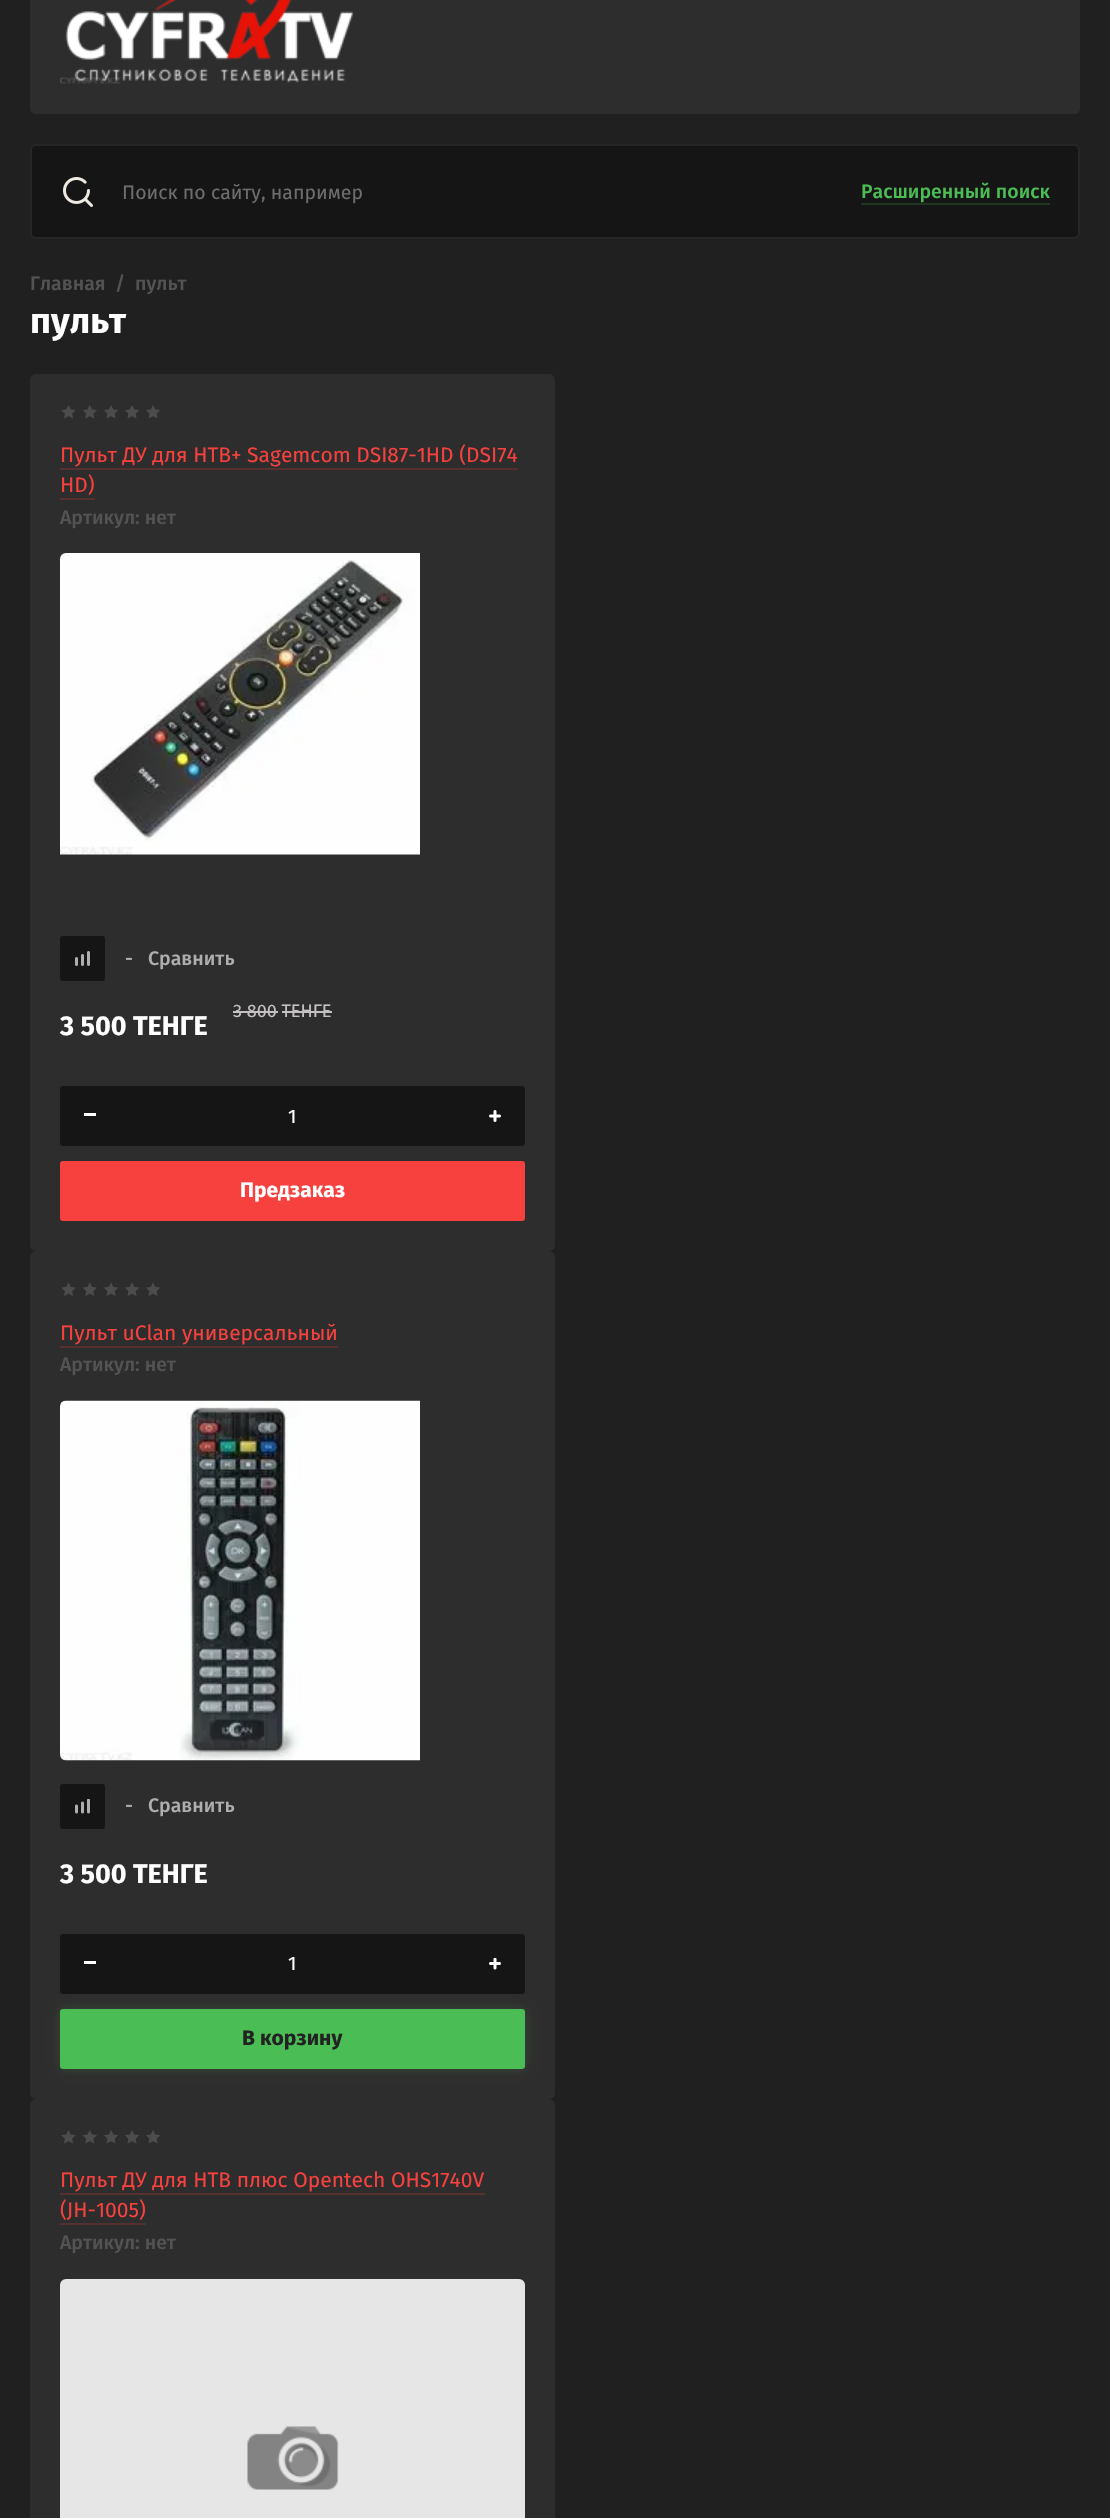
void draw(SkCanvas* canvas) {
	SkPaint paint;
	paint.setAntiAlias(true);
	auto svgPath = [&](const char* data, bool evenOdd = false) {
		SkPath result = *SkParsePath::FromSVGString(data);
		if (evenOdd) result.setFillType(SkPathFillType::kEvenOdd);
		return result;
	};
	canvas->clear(0xff202020);
	paint.setColor(0xff2e2d2d);
	canvas->drawPath(svgPath("M30-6H1080V108C1080 111.5 1077.5 114 1074 114H36C32.5 114 30 111.5 30 108Z"), paint);
	canvas->drawImageRect(SkImages::DeferredFromEncodedData(SkData::MakeFromFileName("img1.png")), SkRect::MakeXYWH(60, 0, 294, 84), SkSamplingOptions());
	paint.setColor(0xff151515);
	canvas->drawRoundRect(SkRect::MakeXYWH(31, 145, 1048, 93), 5, 5, paint);
	paint.setStroke(true);
	paint.setStrokeWidth(2);
	paint.setColor(0xff262626);
	canvas->drawRoundRect(SkRect::MakeXYWH(31, 145, 1048, 93), 5, 5, paint);
	canvas->drawImageRect(SkImages::DeferredFromEncodedData(SkData::MakeFromFileName("img2.png")), SkRect::MakeXYWH(63, 177, 30, 30), SkSamplingOptions());
	SkFont f1(fontMgr->matchFamilyStyle("Fira Sans", SkFontStyle::Normal()), 19.5);
	f1.setSubpixel(true);
	paint.setStroke(false);
	paint.setColor(0xff6d6d6d);
	canvas->drawString("Поиск по сайту, например", 122, 199, f1, paint);
	SkFont f2(fontMgr->matchFamilyStyle("Fira Sans", SkFontStyle(500, SkFontStyle::kNormal_Width, SkFontStyle::kUpright_Slant)), 19.5);
	f2.setSubpixel(true);
	paint.setColor(0xff4bbd55);
	canvas->drawString("Расширенный поиск", 861, 198, f2, paint);
	paint.setColor(0xff203722);
	canvas->drawRect(SkRect::MakeXYWH(861, 203, 189, 2), paint);
	paint.setColor(0xff535353);
	canvas->drawString("Главная", 30, 290, f2, paint);
	canvas->drawString("/", 115, 290, f2, paint);
	canvas->drawString("пульт", 135, 290, f2, paint);
	SkFont f3(fontMgr->matchFamilyStyle("Fira Sans", SkFontStyle::Bold()), 36);
	f3.setSubpixel(true);
	paint.setColor(0xffffffff);
	canvas->drawString("пульт", 30, 333, f3, paint);
	paint.setColor(0xff2e2d2d);
	canvas->drawRoundRect(SkRect::MakeXYWH(30, 374, 525, 877), 6, 6, paint);
	canvas->drawImageRect(SkImages::DeferredFromEncodedData(SkData::MakeFromFileName("img3.png")), SkRect::MakeXYWH(61, 405, 99, 14), SkSamplingOptions());
	SkFont f4(fontMgr->matchFamilyStyle("Fira Sans", SkFontStyle::Normal()), 21);
	f4.setSubpixel(true);
	paint.setColor(0xfff6413e);
	canvas->drawString("Пульт ДУ для НТВ+ Sagemcom DSI87-1HD (DSI74", 60, 462, f4, paint);
	paint.setColor(0xff563130);
	canvas->drawRect(SkRect::MakeXYWH(60, 468, 458, 2), paint);
	paint.setColor(0xfff6413e);
	canvas->drawString("HD)", 60, 492, f4, paint);
	paint.setColor(0xff563130);
	canvas->drawRect(SkRect::MakeXYWH(60, 498, 35, 2), paint);
	paint.setColor(0xff535353);
	canvas->drawString("Артикул: нет", 60, 524, f2, paint);
	canvas->drawImageRect(SkImages::DeferredFromEncodedData(SkData::MakeFromFileName("img4.png")), SkRect::MakeXYWH(60, 553, 360, 302), SkSamplingOptions());
	paint.setColor(0xff151515);
	canvas->drawRoundRect(SkRect::MakeXYWH(60, 936, 45, 45), 3, 3, paint);
	canvas->drawImageRect(SkImages::DeferredFromEncodedData(SkData::MakeFromFileName("img5.png")), SkRect::MakeXYWH(75, 951, 15, 15), SkSamplingOptions());
	paint.setColor(0xffaeaeae);
	canvas->drawString("-", 125, 965, f2, paint);
	canvas->drawString("Сравнить", 148, 965, f2, paint);
	SkFont f5(fontMgr->matchFamilyStyle("Fira Sans", SkFontStyle::Normal()), 18);
	f5.setSubpixel(true);
	paint.setColor(0xffc4c1c1);
	canvas->drawString("3 800 ТЕНГЕ", 233, 1017, f5, paint);
	canvas->drawRect(SkRect::MakeXYWH(233, 1011, 45, 2), paint);
	canvas->drawRect(SkRect::MakeXYWH(282, 1011, 50, 2), paint);
	SkFont f6(fontMgr->matchFamilyStyle("Fira Sans", SkFontStyle::Bold()), 27);
	f6.setSubpixel(true);
	paint.setColor(0xffffffff);
	canvas->drawString("3 500 ТЕНГЕ", 60, 1035, f6, paint);
	paint.setColor(0xff151515);
	canvas->drawRoundRect(SkRect::MakeXYWH(60, 1086, 465, 60), 3, 3, paint);
	paint.setColor(0xffffffff);
	canvas->drawRect(SkRect::MakeXYWH(84, 1113, 12, 3), paint);
	canvas->drawString("1", 288, 1123, f1, paint);
	canvas->drawImageRect(SkImages::DeferredFromEncodedData(SkData::MakeFromFileName("img6.png")), SkRect::MakeXYWH(489, 1110, 12, 12), SkSamplingOptions());
	paint.setColor(0xfff6413e);
	canvas->drawRoundRect(SkRect::MakeXYWH(60, 1161, 465, 60), 3, 3, paint);
	SkFont f7(fontMgr->matchFamilyStyle("Fira Sans", SkFontStyle::Bold()), 21);
	f7.setSubpixel(true);
	paint.setColor(0xffffffff);
	canvas->drawString("Предзаказ", 240, 1197, f7, paint);
	paint.setColor(0xff2e2d2d);
	canvas->drawRoundRect(SkRect::MakeXYWH(30, 1251, 525, 848), 6, 6, paint);
	canvas->drawImageRect(SkImages::DeferredFromEncodedData(SkData::MakeFromFileName("img7.png")), SkRect::MakeXYWH(61, 1282, 99, 14), SkSamplingOptions());
	paint.setColor(0xfff6413e);
	canvas->drawString("Пульт uClan универсальный", 60, 1340, f4, paint);
	paint.setColor(0xff563130);
	canvas->drawRect(SkRect::MakeXYWH(60, 1346, 278, 2), paint);
	paint.setColor(0xff535353);
	canvas->drawString("Артикул: нет", 60, 1371, f2, paint);
	canvas->drawImageRect(SkImages::DeferredFromEncodedData(SkData::MakeFromFileName("img8.png")), SkRect::MakeXYWH(60, 1400, 360, 361), SkSamplingOptions());
	paint.setColor(0xff151515);
	canvas->drawRoundRect(SkRect::MakeXYWH(60, 1784, 45, 45), 3, 3, paint);
	canvas->drawImageRect(SkImages::DeferredFromEncodedData(SkData::MakeFromFileName("img9.png")), SkRect::MakeXYWH(75, 1799, 15, 15), SkSamplingOptions());
	paint.setColor(0xffaeaeae);
	canvas->drawString("-", 125, 1812, f2, paint);
	canvas->drawString("Сравнить", 148, 1812, f2, paint);
	paint.setColor(0xffffffff);
	canvas->drawString("3 500 ТЕНГЕ", 60, 1883, f6, paint);
	paint.setColor(0xff151515);
	canvas->drawRoundRect(SkRect::MakeXYWH(60, 1934, 465, 60), 3, 3, paint);
	paint.setColor(0xffffffff);
	canvas->drawRect(SkRect::MakeXYWH(84, 1961, 12, 3), paint);
	canvas->drawString("1", 288, 1970, f1, paint);
	canvas->drawImageRect(SkImages::DeferredFromEncodedData(SkData::MakeFromFileName("img10.png")), SkRect::MakeXYWH(489, 1958, 12, 12), SkSamplingOptions());
	paint.setColor(0x334bbd55);
	paint.setMaskFilter(SkMaskFilter::MakeBlur(kNormal_SkBlurStyle, 6));
	canvas->drawRoundRect(SkRect::MakeXYWH(60, 2009, 465, 60), 3, 3, paint);
	paint.setMaskFilter(nullptr);
	paint.setColor(0xff4bbd55);
	canvas->drawRoundRect(SkRect::MakeXYWH(60, 2009, 465, 60), 3, 3, paint);
	paint.setColor(0xff222222);
	canvas->drawString("В корзину", 242, 2045, f7, paint);
	paint.setColor(0xff2e2d2d);
	canvas->drawRoundRect(SkRect::MakeXYWH(30, 2099, 525, 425), 6, 6, paint);
	canvas->drawImageRect(SkImages::DeferredFromEncodedData(SkData::MakeFromFileName("img3.png")), SkRect::MakeXYWH(61, 2130, 99, 14), SkSamplingOptions());
	paint.setColor(0xfff6413e);
	canvas->drawString("Пульт ДУ для НТВ плюс Opentech OHS1740V", 60, 2187, f4, paint);
	paint.setColor(0xff563130);
	canvas->drawRect(SkRect::MakeXYWH(60, 2193, 425, 2), paint);
	paint.setColor(0xfff6413e);
	canvas->drawString("(JH-1005)", 60, 2217, f4, paint);
	paint.setColor(0xff563130);
	canvas->drawRect(SkRect::MakeXYWH(60, 2223, 86, 2), paint);
	paint.setColor(0xff535353);
	canvas->drawString("Артикул: нет", 60, 2249, f2, paint);
	paint.setColor(0xffe6e6e6);
	canvas->drawRoundRect(SkRect::MakeXYWH(60, 2279, 465, 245), 6, 6, paint);
	canvas->drawImageRect(SkImages::DeferredFromEncodedData(SkData::MakeFromFileName("img11.png")), SkRect::MakeXYWH(247, 2426, 92, 64), SkSamplingOptions());
}
